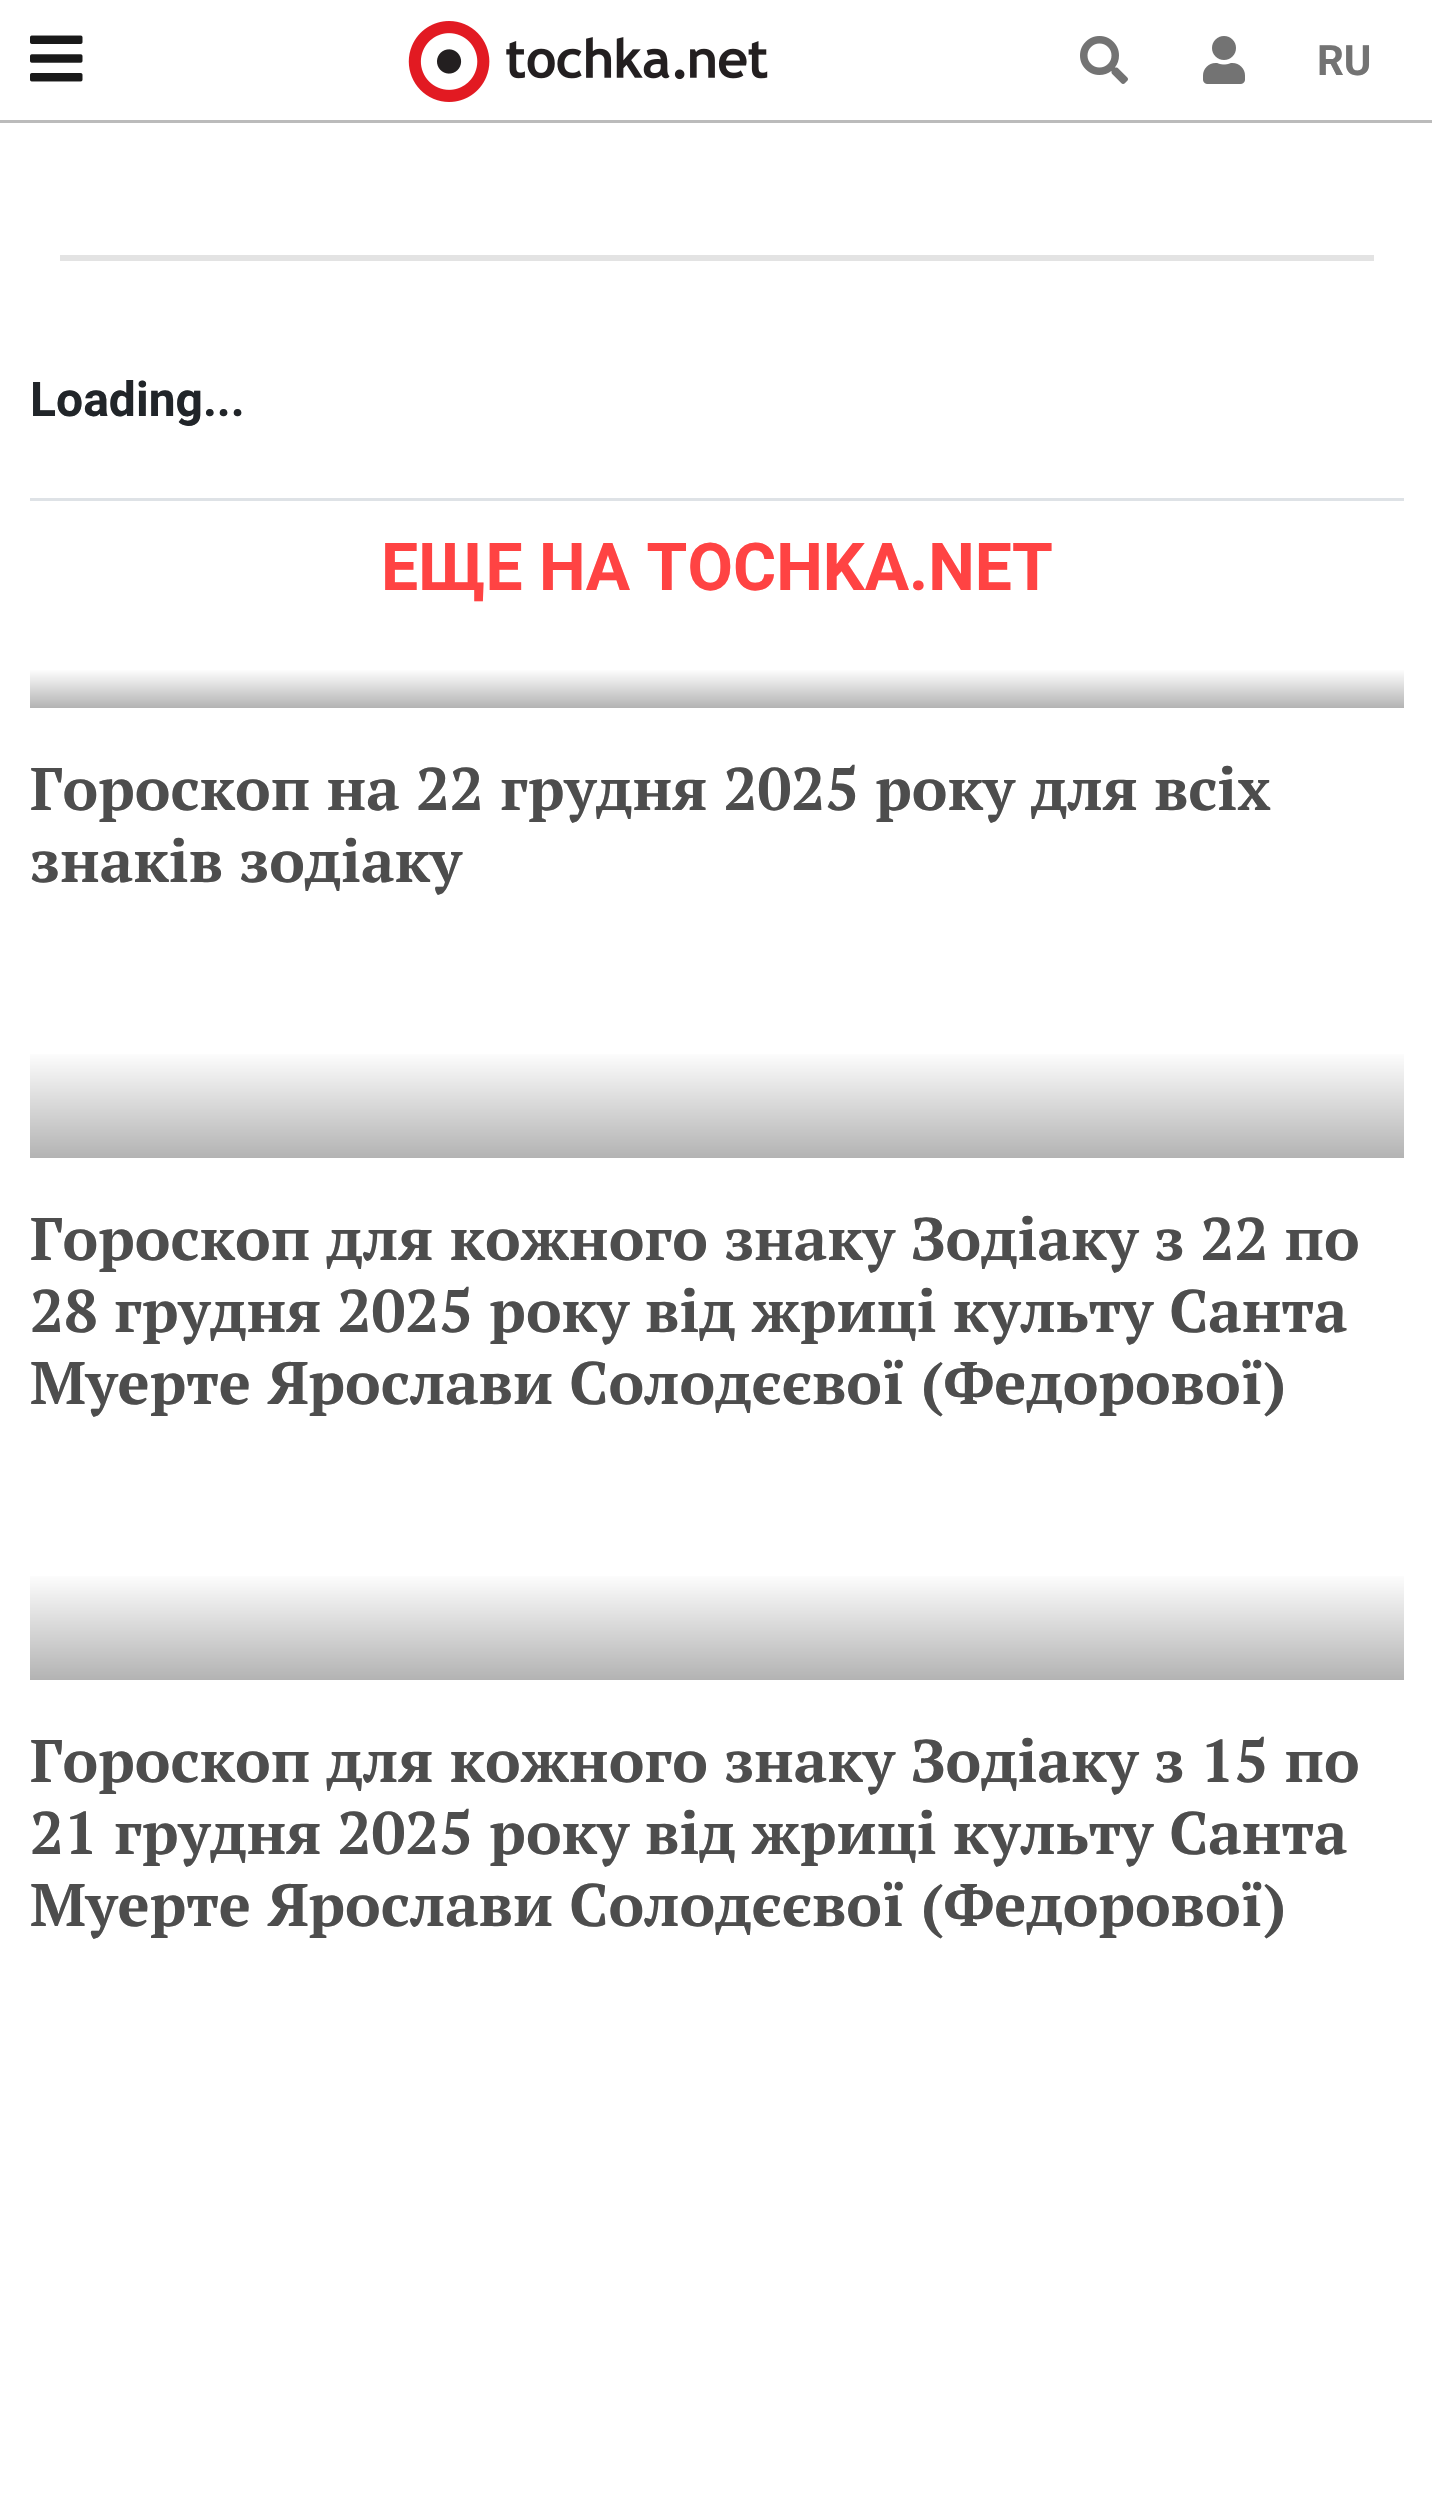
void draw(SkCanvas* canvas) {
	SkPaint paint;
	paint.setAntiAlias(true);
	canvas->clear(0xffffffff);
	paint.setColor(0xffbbbbbb);
	canvas->drawRect(SkRect::MakeXYWH(0, 120, 1432, 3), paint);
	canvas->drawImageRect(SkImages::DeferredFromEncodedData(SkData::MakeFromFileName("img1.png")), SkRect::MakeXYWH(30, 35, 53, 47), SkSamplingOptions());
	canvas->drawImageRect(SkImages::DeferredFromEncodedData(SkData::MakeFromFileName("img2.png")), SkRect::MakeXYWH(408, 21, 360, 81), SkSamplingOptions());
	canvas->drawImageRect(SkImages::DeferredFromEncodedData(SkData::MakeFromFileName("img3.png")), SkRect::MakeXYWH(1080, 36, 48, 48), SkSamplingOptions());
	canvas->drawImageRect(SkImages::DeferredFromEncodedData(SkData::MakeFromFileName("img4.png")), SkRect::MakeXYWH(1203, 36, 42, 48), SkSamplingOptions());
	SkFont f1(fontMgr->matchFamilyStyle("Roboto", SkFontStyle::Bold()), 42);
	f1.setSubpixel(true);
	paint.setColor(0xff737373);
	canvas->drawString("RU", 1317, 75, f1, paint);
	paint.setColor(0xffe3e3e3);
	canvas->drawRect(SkRect::MakeXYWH(60, 255, 1314, 6), paint);
	SkFont f2(fontMgr->matchFamilyStyle("Roboto", SkFontStyle::Bold()), 48);
	f2.setSubpixel(true);
	paint.setColor(0xff212529);
	canvas->drawString("Loading...", 30, 416, f2, paint);
	paint.setColor(0xffdee2e6);
	canvas->drawRect(SkRect::MakeXYWH(30, 498, 1374, 3), paint);
	SkFont f3(fontMgr->matchFamilyStyle("Roboto", SkFontStyle::Bold()), 66);
	f3.setSubpixel(true);
	paint.setColor(0xffff4343);
	canvas->drawString("ЕЩЕ НА TOCHKA.NET", 381, 590, f3, paint);
	{
		const SkColor colors[] = {0xffffffff, 0xffb3b3b3};
		const float stops[] = {0, 1};
		const SkPoint ends[] = {{717, 669}, {717, 708}};
		paint.setShader(SkGradientShader::MakeLinear(ends, colors, stops, 2, SkTileMode::kClamp));
		paint.setAlpha(255);
	}
	canvas->drawRect(SkRect::MakeXYWH(30, 670, 1374, 38), paint);
	SkFont f4(fontMgr->matchFamilyStyle("PT Serif", SkFontStyle::Bold()), 60);
	f4.setSubpixel(true);
	paint.setShader(nullptr);
	paint.setColor(0xff4d4d4d);
	canvas->drawString("Гороскоп на 22 грудня 2025 року для всіх", 30, 810, f4, paint);
	canvas->drawString("знаків зодіаку", 30, 882, f4, paint);
	{
		const SkColor colors[] = {0xffffffff, 0xffb3b3b3};
		const float stops[] = {0, 1};
		const SkPoint ends[] = {{717, 1050}, {717, 1158}};
		paint.setShader(SkGradientShader::MakeLinear(ends, colors, stops, 2, SkTileMode::kClamp));
		paint.setAlpha(255);
	}
	canvas->drawRect(SkRect::MakeXYWH(30, 1054, 1374, 104), paint);
	paint.setShader(nullptr);
	paint.setColor(0xff4d4d4d);
	canvas->drawString("Гороскоп для кожного знаку Зодіаку з 22 по", 30, 1260, f4, paint);
	canvas->drawString("28 грудня 2025 року від жриці культу Санта", 30, 1332, f4, paint);
	canvas->drawString("Муерте Ярослави Солодєєвої (Федорової)", 30, 1404, f4, paint);
	{
		const SkColor colors[] = {0xffffffff, 0xffb3b3b3};
		const float stops[] = {0, 1};
		const SkPoint ends[] = {{717, 1572}, {717, 1680}};
		paint.setShader(SkGradientShader::MakeLinear(ends, colors, stops, 2, SkTileMode::kClamp));
		paint.setAlpha(255);
	}
	canvas->drawRect(SkRect::MakeXYWH(30, 1576, 1374, 104), paint);
	paint.setShader(nullptr);
	paint.setColor(0xff4d4d4d);
	canvas->drawString("Гороскоп для кожного знаку Зодіаку з 15 по", 30, 1782, f4, paint);
	canvas->drawString("21 грудня 2025 року від жриці культу Санта", 30, 1854, f4, paint);
	canvas->drawString("Муерте Ярослави Солодєєвої (Федорової)", 30, 1926, f4, paint);
}
